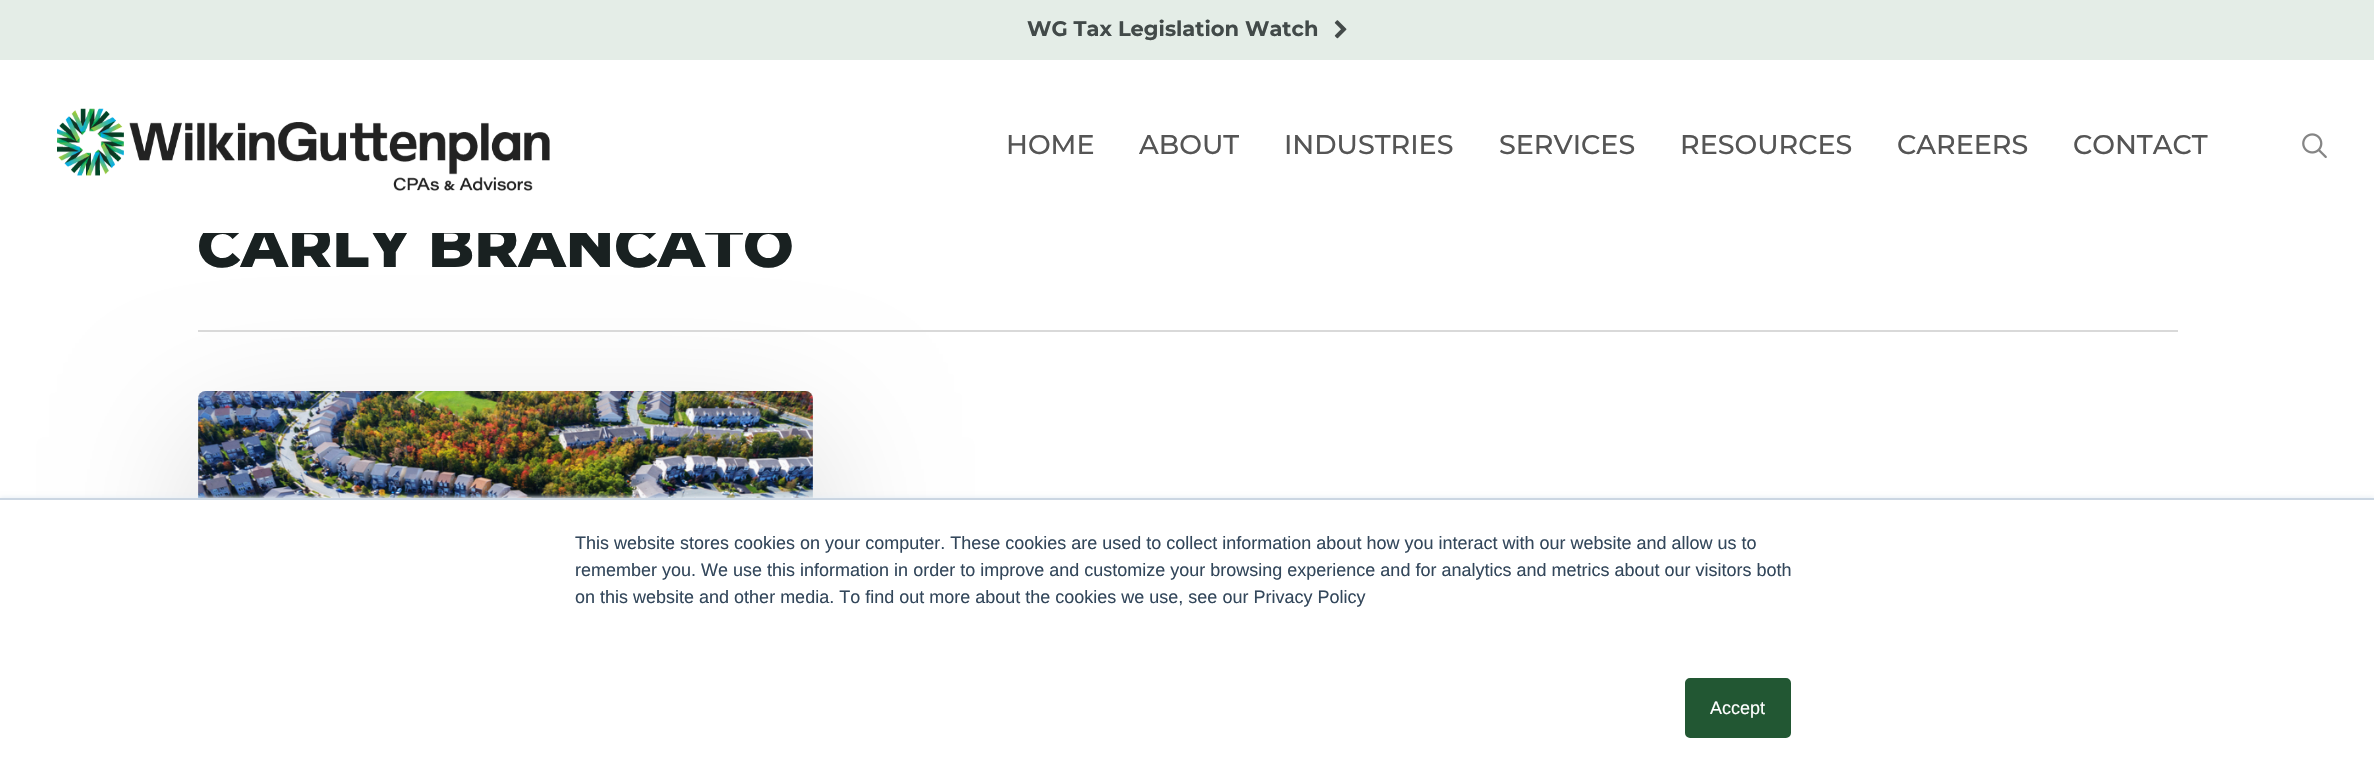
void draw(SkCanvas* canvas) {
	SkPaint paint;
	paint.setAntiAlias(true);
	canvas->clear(0xffffffff);
	paint.setColor(0x24000000);
	paint.setMaskFilter(SkMaskFilter::MakeBlur(kNormal_SkBlurStyle, 67.5));
	canvas->drawRoundRect(SkRect::MakeXYWH(198, 437, 615, 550), 8, 8, paint);
	paint.setMaskFilter(nullptr);
	SkFont f1(fontMgr->matchFamilyStyle("Montserrat", SkFontStyle(800, SkFontStyle::kNormal_Width, SkFontStyle::kUpright_Slant)), 60);
	f1.setSubpixel(true);
	paint.setColor(0xff192121);
	canvas->drawString("CARLY BRANCATO", 197, 267, f1, paint);
	paint.setColor(0xffffffff);
	canvas->drawRect(SkRect::MakeXYWH(203, 224, 585, 9), paint);
	paint.setColor(0xffe4ede7);
	canvas->drawRect(SkRect::MakeXYWH(0, 0, 2374, 60), paint);
	SkFont f2(fontMgr->matchFamilyStyle("Montserrat", SkFontStyle::Bold()), 21);
	f2.setSubpixel(true);
	paint.setColor(0xff424a49);
	canvas->drawString("WG Tax Legislation Watch", 1027, 36, f2, paint);
	canvas->drawImageRect(SkImages::DeferredFromEncodedData(SkData::MakeFromFileName("img1.png")), SkRect::MakeXYWH(1334, 20, 13, 19), SkSamplingOptions());
	canvas->drawImageRect(SkImages::DeferredFromEncodedData(SkData::MakeFromFileName("img2.png")), SkRect::MakeXYWH(57, 108, 493, 83), SkSamplingOptions());
	SkFont f3(fontMgr->matchFamilyStyle("Montserrat", SkFontStyle(500, SkFontStyle::kNormal_Width, SkFontStyle::kUpright_Slant)), 27);
	f3.setSubpixel(true);
	paint.setColor(0xff555555);
	canvas->drawString("HOME", 1006, 154, f3, paint);
	canvas->drawString("ABOUT", 1139, 154, f3, paint);
	canvas->drawString("INDUSTRIES", 1284, 154, f3, paint);
	canvas->drawString("SERVICES", 1499, 154, f3, paint);
	canvas->drawString("RESOURCES", 1680, 154, f3, paint);
	canvas->drawString("CAREERS", 1897, 154, f3, paint);
	canvas->drawString("CONTACT", 2073, 154, f3, paint);
	canvas->drawImageRect(SkImages::DeferredFromEncodedData(SkData::MakeFromFileName("img3.png")), SkRect::MakeXYWH(2302, 133, 25, 25), SkSamplingOptions());
	paint.setColor(0xffd9d9d9);
	canvas->drawRect(SkRect::MakeXYWH(198, 330, 1980, 2), paint);
	canvas->drawImageRect(SkImages::DeferredFromEncodedData(SkData::MakeFromFileName("img4.png")), SkRect::MakeXYWH(198, 391, 615, 107), SkSamplingOptions());
	paint.setColor(0xffeaf0f6);
	paint.setMaskFilter(SkMaskFilter::MakeBlur(kNormal_SkBlurStyle, 2));
	canvas->drawRect(SkRect::MakeXYWH(0, 497, 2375, 279), paint);
	paint.setMaskFilter(nullptr);
	paint.setColor(0xffffffff);
	canvas->drawRect(SkRect::MakeXYWH(0, 500, 2374, 276), paint);
	paint.setColor(0xffcbd6e2);
	canvas->drawRect(SkRect::MakeXYWH(0, 498, 2374, 2), paint);
	SkFont f4(fontMgr->matchFamilyStyle("Liberation Sans", SkFontStyle::Normal()), 18);
	f4.setSubpixel(true);
	paint.setColor(0xff33475b);
	canvas->drawString("This website stores cookies on your computer. These cookies are used to collect information about how you interact with our website and allow us to", 575, 549, f4, paint);
	canvas->drawString("remember you. We use this information in order to improve and customize your browsing experience and for analytics and metrics about our visitors both", 575, 576, f4, paint);
	canvas->drawString("on this website and other media. To find out more about the cookies we use, see our Privacy Policy", 575, 603, f4, paint);
	paint.setColor(0xff225733);
	canvas->drawRoundRect(SkRect::MakeXYWH(1686, 679, 104, 58), 4, 4, paint);
	paint.setStroke(true);
	paint.setStrokeWidth(2);
	canvas->drawRoundRect(SkRect::MakeXYWH(1686, 679, 104, 58), 4, 4, paint);
	paint.setStroke(false);
	paint.setColor(0xffffffff);
	canvas->drawString("Accept", 1710, 714, f4, paint);
}
